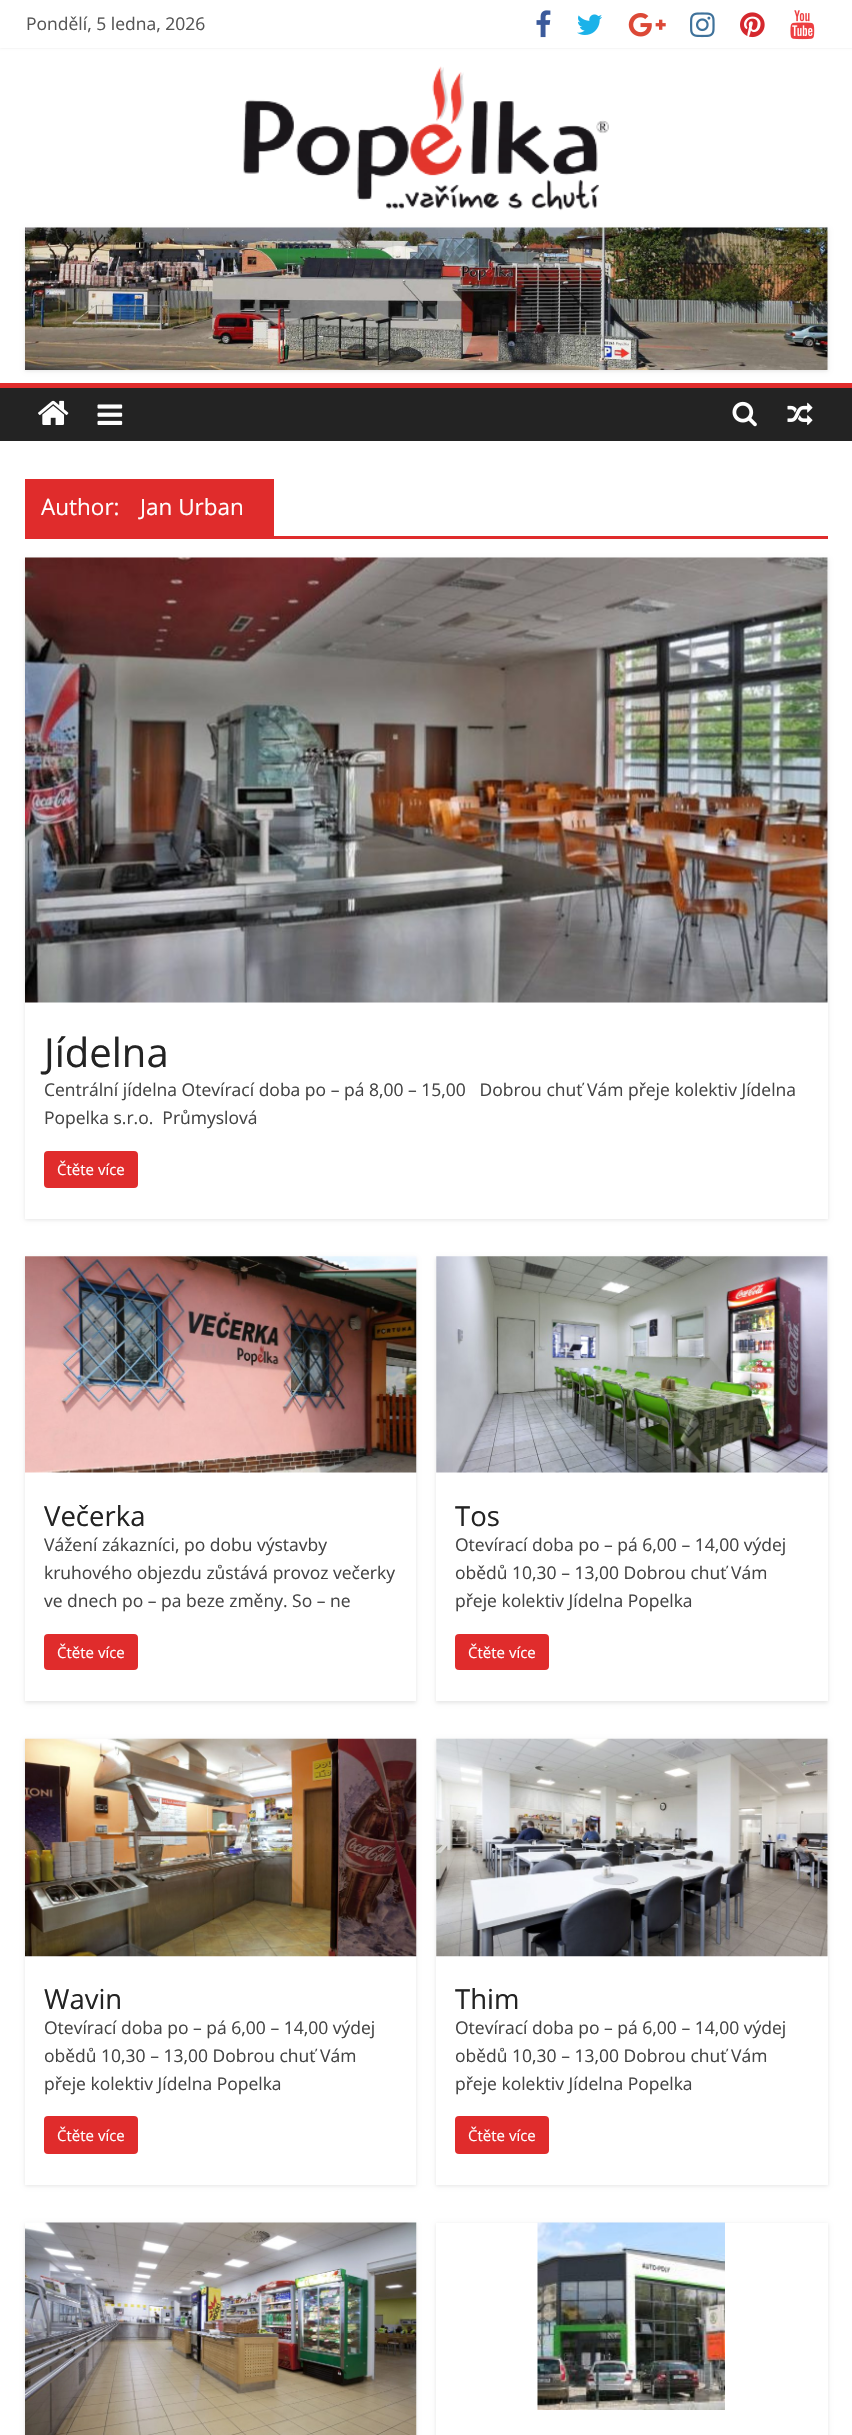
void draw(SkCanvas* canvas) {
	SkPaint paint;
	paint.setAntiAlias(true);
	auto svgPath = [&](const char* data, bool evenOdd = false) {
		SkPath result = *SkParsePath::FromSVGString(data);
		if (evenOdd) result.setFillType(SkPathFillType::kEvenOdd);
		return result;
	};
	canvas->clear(0xffffffff);
	paint.setColor(0x1a000000);
	paint.setMaskFilter(SkMaskFilter::MakeBlur(kNormal_SkBlurStyle, 1));
	canvas->drawRect(SkRect::MakeXYWH(0, 0, 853, 48), paint);
	paint.setMaskFilter(nullptr);
	paint.setColor(0xffffffff);
	canvas->drawRect(SkRect::MakeXYWH(0, 0, 852, 48), paint);
	SkFont f1(fontMgr->matchFamilyStyle("Open Sans", SkFontStyle::Normal()), 17.5);
	f1.setSubpixel(true);
	paint.setColor(0xff555555);
	canvas->drawString("Pondělí, 5 ledna, 2026", 26, 30, f1, paint);
	canvas->drawImageRect(SkImages::DeferredFromEncodedData(SkData::MakeFromFileName("img1.png")), SkRect::MakeXYWH(536, 10, 15, 28), SkSamplingOptions());
	canvas->drawImageRect(SkImages::DeferredFromEncodedData(SkData::MakeFromFileName("img2.png")), SkRect::MakeXYWH(577, 14, 25, 21), SkSamplingOptions());
	canvas->drawImageRect(SkImages::DeferredFromEncodedData(SkData::MakeFromFileName("img3.png")), SkRect::MakeXYWH(628, 13, 38, 24), SkSamplingOptions());
	canvas->drawImageRect(SkImages::DeferredFromEncodedData(SkData::MakeFromFileName("img4.png")), SkRect::MakeXYWH(690, 12, 25, 26), SkSamplingOptions());
	canvas->drawImageRect(SkImages::DeferredFromEncodedData(SkData::MakeFromFileName("img5.png")), SkRect::MakeXYWH(740, 12, 25, 26), SkSamplingOptions());
	canvas->drawImageRect(SkImages::DeferredFromEncodedData(SkData::MakeFromFileName("img6.png")), SkRect::MakeXYWH(790, 10, 25, 30), SkSamplingOptions());
	canvas->drawImageRect(SkImages::DeferredFromEncodedData(SkData::MakeFromFileName("img7.png")), SkRect::MakeXYWH(243, 66, 366, 145), SkSamplingOptions());
	paint.setColor(0x1a000000);
	paint.setMaskFilter(SkMaskFilter::MakeBlur(kNormal_SkBlurStyle, 2));
	canvas->drawRect(SkRect::MakeXYWH(25, 229, 803, 142), paint);
	paint.setMaskFilter(nullptr);
	canvas->drawImageRect(SkImages::DeferredFromEncodedData(SkData::MakeFromFileName("img8.png")), SkRect::MakeXYWH(25, 227, 803, 143), SkSamplingOptions());
	paint.setColor(0xff232323);
	canvas->drawRect(SkRect::MakeXYWH(0, 388, 852, 53), paint);
	paint.setColor(0xffe02c2c);
	canvas->drawRect(SkRect::MakeXYWH(0, 383, 852, 5), paint);
	canvas->drawImageRect(SkImages::DeferredFromEncodedData(SkData::MakeFromFileName("img9.png")), SkRect::MakeXYWH(38, 400, 31, 25), SkSamplingOptions());
	canvas->drawImageRect(SkImages::DeferredFromEncodedData(SkData::MakeFromFileName("img10.png")), SkRect::MakeXYWH(97, 404, 26, 21), SkSamplingOptions());
	canvas->drawImageRect(SkImages::DeferredFromEncodedData(SkData::MakeFromFileName("img11.png")), SkRect::MakeXYWH(732, 401, 25, 26), SkSamplingOptions());
	canvas->drawImageRect(SkImages::DeferredFromEncodedData(SkData::MakeFromFileName("img12.png")), SkRect::MakeXYWH(787, 402, 26, 23), SkSamplingOptions());
	canvas->drawRect(SkRect::MakeXYWH(25, 536, 803, 3), paint);
	canvas->drawRect(SkRect::MakeXYWH(25, 479, 249, 57), paint);
	SkFont f2(fontMgr->matchFamilyStyle("Open Sans", SkFontStyle::Normal()), 22.5);
	f2.setSubpixel(true);
	paint.setColor(0xffffffff);
	canvas->drawString("Author:", 41, 515, f2, paint);
	canvas->drawString("Jan Urban", 140, 515, f2, paint);
	canvas->save();
	canvas->clipPath(svgPath("M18 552H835V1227H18ZM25 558H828V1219H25Z", true), true);
	paint.setColor(0x1a000000);
	paint.setMaskFilter(SkMaskFilter::MakeBlur(kNormal_SkBlurStyle, 2));
	canvas->drawRect(SkRect::MakeXYWH(25, 559, 803, 661), paint);
	paint.setMaskFilter(nullptr);
	canvas->restore();
	canvas->drawImageRect(SkImages::DeferredFromEncodedData(SkData::MakeFromFileName("img13.png")), SkRect::MakeXYWH(25, 557, 803, 446), SkSamplingOptions());
	SkFont f3(fontMgr->matchFamilyStyle("Open Sans", SkFontStyle::Normal()), 40);
	f3.setSubpixel(true);
	paint.setColor(0xff232323);
	canvas->drawString("Jídelna", 44, 1067, f3, paint);
	paint.setColor(0xff444444);
	canvas->drawString("Centrální jídelna Otevírací doba po – pá 8,00 – 15,00   Dobrou chuť Vám přeje kolektiv Jídelna", 44, 1096, f1, paint);
	canvas->drawString("Popelka s.r.o.  Průmyslová", 44, 1124, f1, paint);
	paint.setColor(0xffe02c2c);
	canvas->drawRoundRect(SkRect::MakeXYWH(44, 1151, 94, 37), 4, 4, paint);
	SkFont f4(fontMgr->matchFamilyStyle("Open Sans", SkFontStyle::Normal()), 15);
	f4.setSubpixel(true);
	paint.setColor(0xffffffff);
	canvas->drawString("Čtěte více", 57, 1175, f4, paint);
	canvas->save();
	canvas->clipPath(svgPath("M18 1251H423V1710H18ZM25 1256H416V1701H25Z", true), true);
	paint.setColor(0x1a000000);
	paint.setMaskFilter(SkMaskFilter::MakeBlur(kNormal_SkBlurStyle, 2));
	canvas->drawRect(SkRect::MakeXYWH(25, 1258, 391, 445), paint);
	paint.setMaskFilter(nullptr);
	canvas->restore();
	canvas->drawImageRect(SkImages::DeferredFromEncodedData(SkData::MakeFromFileName("img14.png")), SkRect::MakeXYWH(25, 1256, 392, 217), SkSamplingOptions());
	SkFont f5(fontMgr->matchFamilyStyle("Open Sans", SkFontStyle::Normal()), 27.5);
	f5.setSubpixel(true);
	paint.setColor(0xff232323);
	canvas->drawString("Večerka", 44, 1526, f5, paint);
	paint.setColor(0xff444444);
	canvas->drawString("Vážení zákazníci, po dobu výstavby", 44, 1551, f1, paint);
	canvas->drawString("kruhového objezdu zůstává provoz večerky", 44, 1579, f1, paint);
	canvas->drawString("ve dnech po – pa beze změny. So – ne", 44, 1607, f1, paint);
	paint.setColor(0xffe02c2c);
	canvas->drawRoundRect(SkRect::MakeXYWH(44, 1634, 94, 36), 4, 4, paint);
	paint.setColor(0xffffffff);
	canvas->drawString("Čtěte více", 57, 1658, f4, paint);
	canvas->save();
	canvas->clipPath(svgPath("M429 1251H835V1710H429ZM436 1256H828V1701H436Z", true), true);
	paint.setColor(0x1a000000);
	paint.setMaskFilter(SkMaskFilter::MakeBlur(kNormal_SkBlurStyle, 2));
	canvas->drawRect(SkRect::MakeXYWH(436, 1258, 392, 445), paint);
	paint.setMaskFilter(nullptr);
	canvas->restore();
	canvas->drawImageRect(SkImages::DeferredFromEncodedData(SkData::MakeFromFileName("img15.png")), SkRect::MakeXYWH(436, 1256, 392, 217), SkSamplingOptions());
	paint.setColor(0xff232323);
	canvas->drawString("Tos", 455, 1526, f5, paint);
	paint.setColor(0xff444444);
	canvas->drawString("Otevírací doba po – pá 6,00 – 14,00 výdej", 455, 1551, f1, paint);
	canvas->drawString("obědů 10,30 – 13,00 Dobrou chuť Vám", 455, 1579, f1, paint);
	canvas->drawString("přeje kolektiv Jídelna Popelka", 455, 1607, f1, paint);
	paint.setColor(0xffe02c2c);
	canvas->drawRoundRect(SkRect::MakeXYWH(455, 1634, 94, 36), 4, 4, paint);
	paint.setColor(0xffffffff);
	canvas->drawString("Čtěte více", 468, 1658, f4, paint);
	canvas->save();
	canvas->clipPath(svgPath("M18 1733H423V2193H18ZM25 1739H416V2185H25Z", true), true);
	paint.setColor(0x1a000000);
	paint.setMaskFilter(SkMaskFilter::MakeBlur(kNormal_SkBlurStyle, 2));
	canvas->drawRect(SkRect::MakeXYWH(25, 1740, 391, 446), paint);
	paint.setMaskFilter(nullptr);
	canvas->restore();
	canvas->drawImageRect(SkImages::DeferredFromEncodedData(SkData::MakeFromFileName("img16.png")), SkRect::MakeXYWH(25, 1738, 392, 219), SkSamplingOptions());
	paint.setColor(0xff232323);
	canvas->drawString("Wavin", 44, 2009, f5, paint);
	paint.setColor(0xff444444);
	canvas->drawString("Otevírací doba po – pá 6,00 – 14,00 výdej", 44, 2034, f1, paint);
	canvas->drawString("obědů 10,30 – 13,00 Dobrou chuť Vám", 44, 2062, f1, paint);
	canvas->drawString("přeje kolektiv Jídelna Popelka", 44, 2090, f1, paint);
	paint.setColor(0xffe02c2c);
	canvas->drawRoundRect(SkRect::MakeXYWH(44, 2116, 94, 38), 4, 4, paint);
	paint.setColor(0xffffffff);
	canvas->drawString("Čtěte více", 57, 2141, f4, paint);
	canvas->save();
	canvas->clipPath(svgPath("M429 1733H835V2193H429ZM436 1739H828V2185H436Z", true), true);
	paint.setColor(0x1a000000);
	paint.setMaskFilter(SkMaskFilter::MakeBlur(kNormal_SkBlurStyle, 2));
	canvas->drawRect(SkRect::MakeXYWH(436, 1740, 392, 446), paint);
	paint.setMaskFilter(nullptr);
	canvas->restore();
	canvas->drawImageRect(SkImages::DeferredFromEncodedData(SkData::MakeFromFileName("img17.png")), SkRect::MakeXYWH(436, 1738, 392, 219), SkSamplingOptions());
	paint.setColor(0xff232323);
	canvas->drawString("Thim", 455, 2009, f5, paint);
	paint.setColor(0xff444444);
	canvas->drawString("Otevírací doba po – pá 6,00 – 14,00 výdej", 455, 2034, f1, paint);
	canvas->drawString("obědů 10,30 – 13,00 Dobrou chuť Vám", 455, 2062, f1, paint);
	canvas->drawString("přeje kolektiv Jídelna Popelka", 455, 2090, f1, paint);
	paint.setColor(0xffe02c2c);
	canvas->drawRoundRect(SkRect::MakeXYWH(455, 2116, 94, 38), 4, 4, paint);
	paint.setColor(0xffffffff);
	canvas->drawString("Čtěte více", 468, 2141, f4, paint);
	paint.setColor(0x1a000000);
	paint.setMaskFilter(SkMaskFilter::MakeBlur(kNormal_SkBlurStyle, 2));
	canvas->drawRect(SkRect::MakeXYWH(25, 2224, 391, 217), paint);
	paint.setMaskFilter(nullptr);
	canvas->drawImageRect(SkImages::DeferredFromEncodedData(SkData::MakeFromFileName("img18.png")), SkRect::MakeXYWH(25, 2222, 392, 213), SkSamplingOptions());
	canvas->save();
	canvas->clipPath(svgPath("M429 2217H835V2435H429ZM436 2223H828V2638H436Z", true), true);
	paint.setMaskFilter(SkMaskFilter::MakeBlur(kNormal_SkBlurStyle, 2));
	canvas->drawRect(SkRect::MakeXYWH(436, 2224, 392, 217), paint);
	paint.setMaskFilter(nullptr);
	canvas->restore();
	canvas->drawImageRect(SkImages::DeferredFromEncodedData(SkData::MakeFromFileName("img19.png")), SkRect::MakeXYWH(537, 2222, 188, 188), SkSamplingOptions());
}
